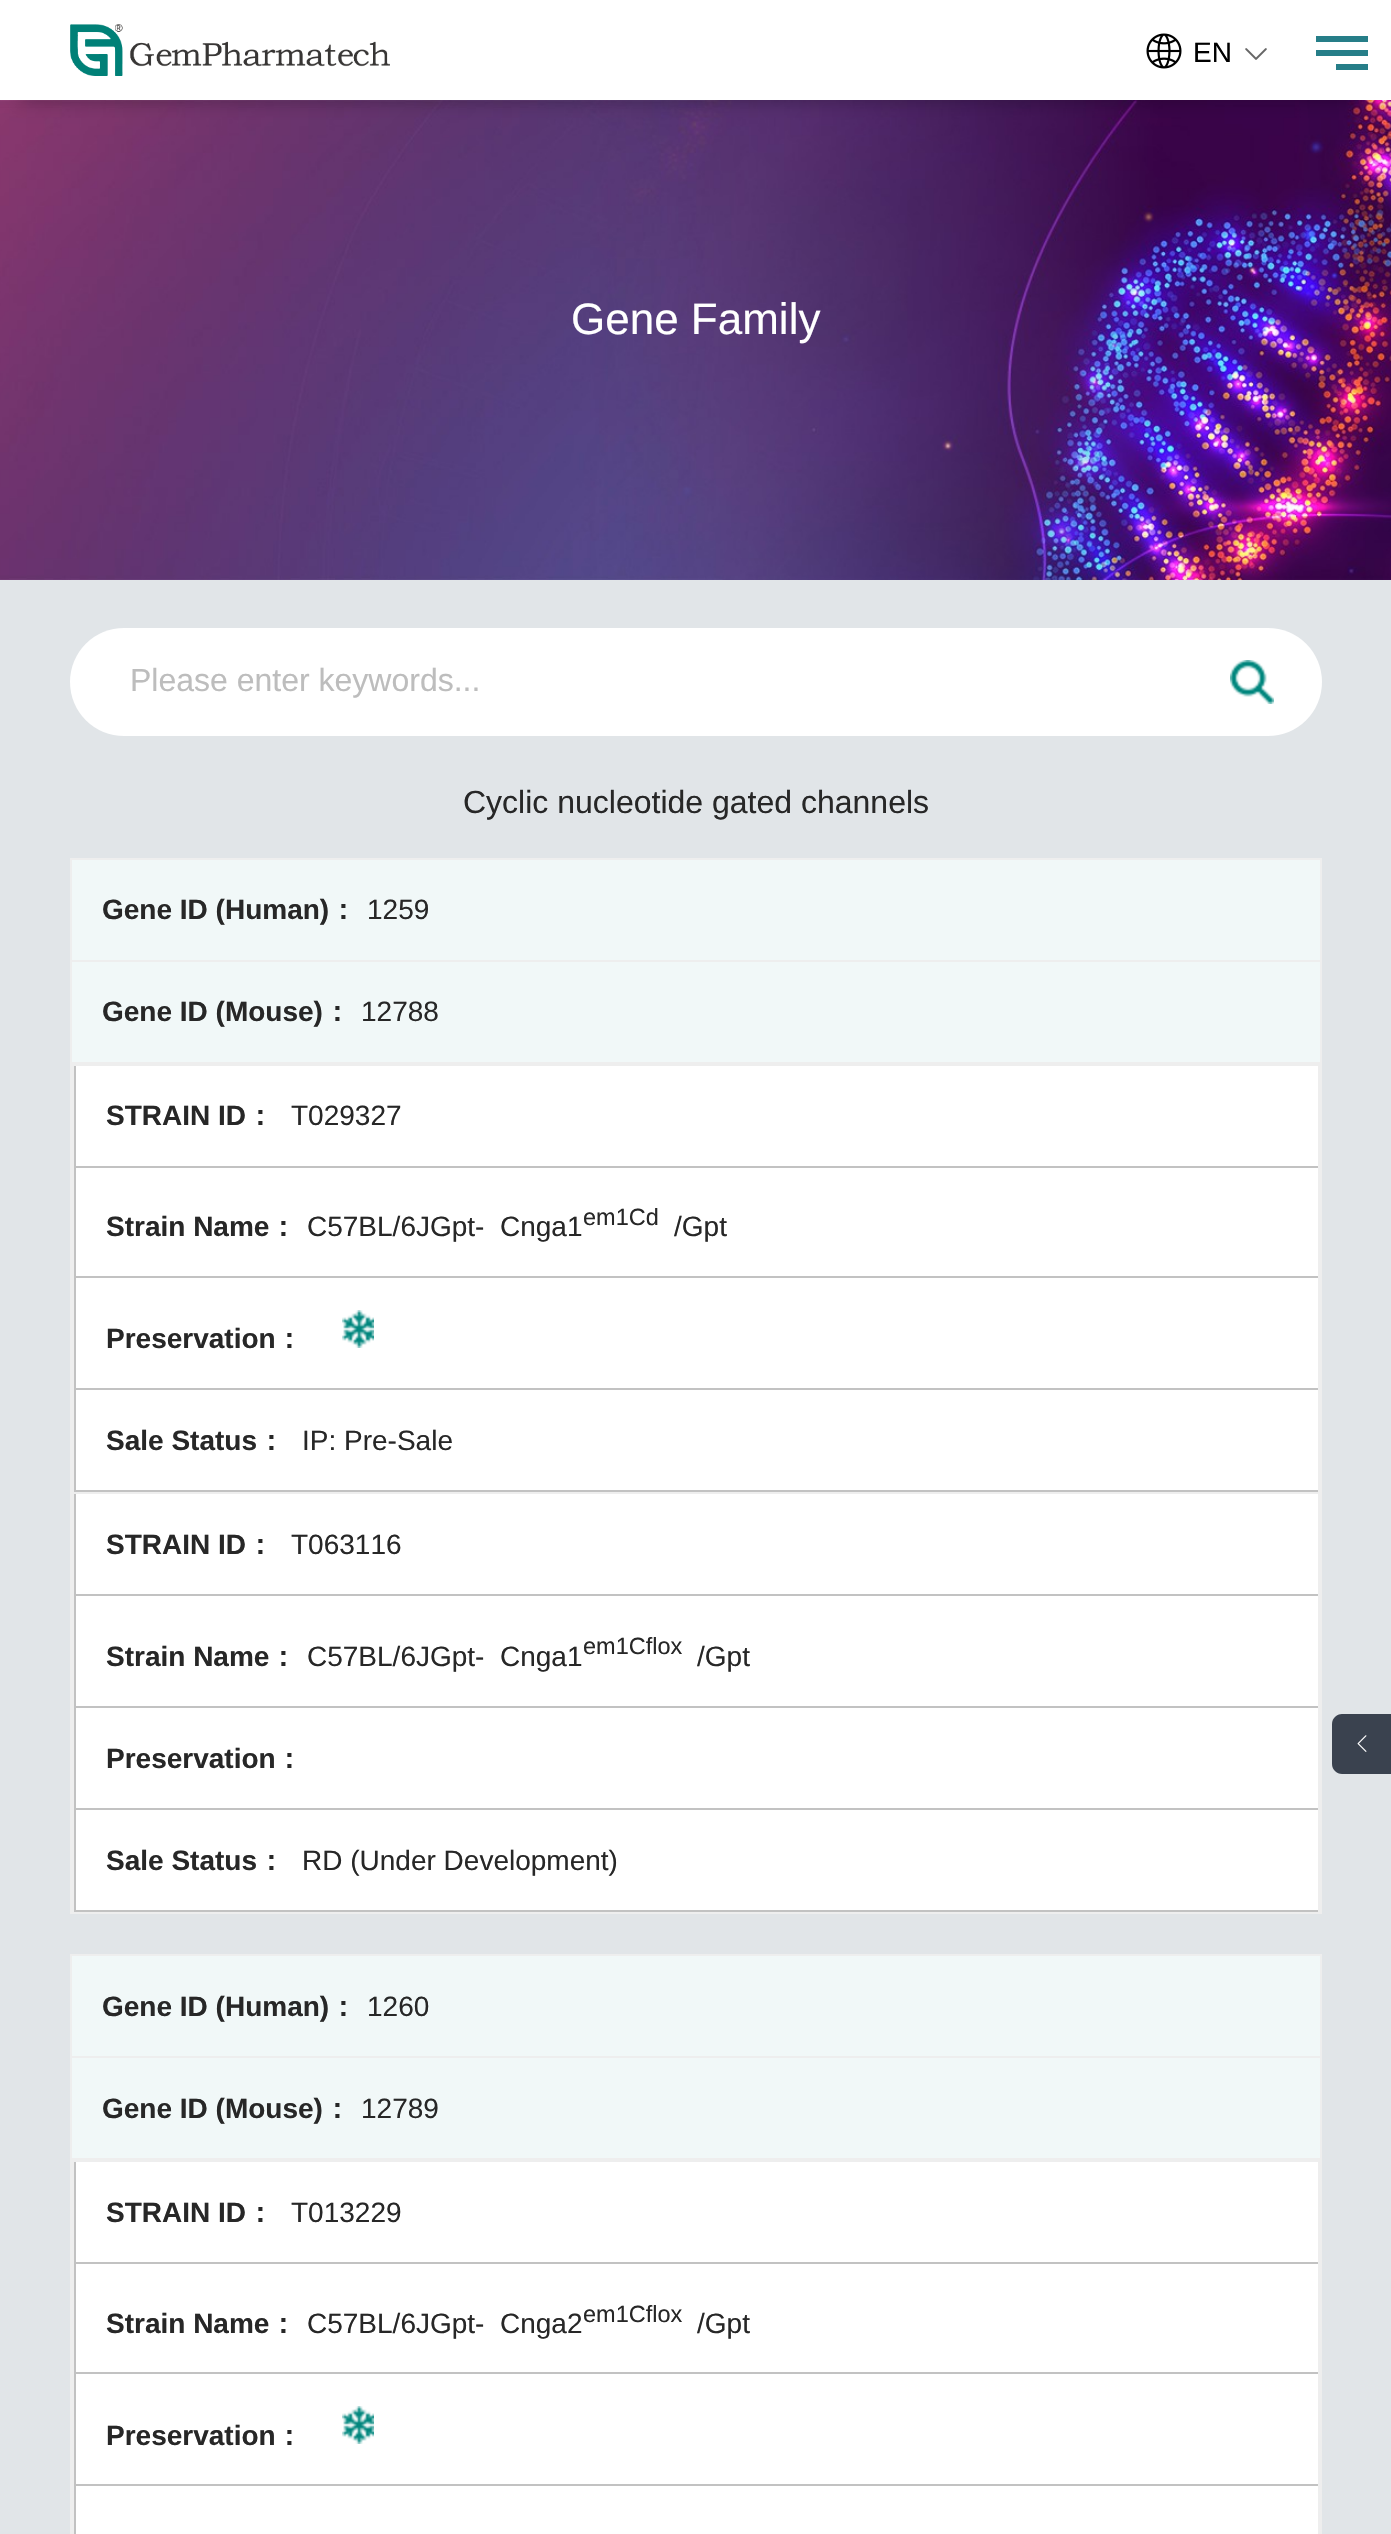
void draw(SkCanvas* canvas) {
	SkPaint paint;
	paint.setAntiAlias(true);
	auto svgPath = [&](const char* data, bool evenOdd = false) {
		SkPath result = *SkParsePath::FromSVGString(data);
		if (evenOdd) result.setFillType(SkPathFillType::kEvenOdd);
		return result;
	};
	canvas->clear(0xffe1e5e8);
	canvas->drawImageRect(SkImages::DeferredFromEncodedData(SkData::MakeFromFileName("img4.png")), SkRect::MakeXYWH(0, 100, 1391, 480), SkSamplingOptions());
	paint.setColor(0x4d000000);
	paint.setMaskFilter(SkMaskFilter::MakeBlur(kNormal_SkBlurStyle, 10));
	canvas->drawRect(SkRect::MakeXYWH(20, 40, 1352, 60), paint);
	paint.setMaskFilter(nullptr);
	paint.setColor(0xffffffff);
	canvas->drawRect(SkRect::MakeXYWH(0, 0, 1391, 100), paint);
	canvas->drawImageRect(SkImages::DeferredFromEncodedData(SkData::MakeFromFileName("img1.png")), SkRect::MakeXYWH(70, 24, 320, 52), SkSamplingOptions());
	canvas->drawImageRect(SkImages::DeferredFromEncodedData(SkData::MakeFromFileName("img2.png")), SkRect::MakeXYWH(1146, 33, 36, 36), SkSamplingOptions());
	SkFont f1(fontMgr->matchFamilyStyle("Liberation Sans", SkFontStyle::Normal()), 28);
	f1.setSubpixel(true);
	paint.setColor(0xff000000);
	canvas->drawString("EN", 1193, 62, f1, paint);
	canvas->drawImageRect(SkImages::DeferredFromEncodedData(SkData::MakeFromFileName("img3.png")), SkRect::MakeXYWH(1245, 48, 22, 12), SkSamplingOptions());
	paint.setColor(0xff267e88);
	canvas->drawRect(SkRect::MakeXYWH(1316, 50, 52, 6), paint);
	canvas->drawRect(SkRect::MakeXYWH(1316, 36, 52, 6), paint);
	canvas->drawRect(SkRect::MakeXYWH(1336, 64, 32, 6), paint);
	SkFont f2(fontMgr->matchFamilyStyle("Liberation Sans", SkFontStyle::Normal()), 44);
	f2.setSubpixel(true);
	paint.setColor(0xffffffff);
	canvas->drawString("Gene Family", 571, 334, f2, paint);
	canvas->drawRoundRect(SkRect::MakeXYWH(70, 628, 1252, 108), 54, 54, paint);
	SkFont f3(fontMgr->matchFamilyStyle("Liberation Sans", SkFontStyle::Normal()), 32);
	f3.setSubpixel(true);
	paint.setColor(0xffbdbdbd);
	canvas->drawString("Please enter keywords...", 130, 691, f3, paint);
	canvas->drawImageRect(SkImages::DeferredFromEncodedData(SkData::MakeFromFileName("img5.png")), SkRect::MakeXYWH(1230, 660, 44, 44), SkSamplingOptions());
	paint.setColor(0xff272727);
	canvas->drawString("Cyclic nucleotide gated channels", 463, 813, f3, paint);
	paint.setColor(0xffeeeeee);
	canvas->drawRect(SkRect::MakeXYWH(70, 858, 1252, 2), paint);
	canvas->drawRect(SkRect::MakeXYWH(1320, 858, 2, 1056), paint);
	canvas->drawRect(SkRect::MakeXYWH(70, 858, 2, 1056), paint);
	paint.setColor(0xfff1f8f8);
	canvas->drawRect(SkRect::MakeXYWH(72, 860, 1248, 100), paint);
	paint.setColor(0xffeeeeee);
	canvas->drawRect(SkRect::MakeXYWH(72, 960, 1248, 2), paint);
	SkFont f4(fontMgr->matchFamilyStyle("Liberation Sans", SkFontStyle::Bold()), 28);
	f4.setSubpixel(true);
	paint.setColor(0xff272727);
	canvas->drawString("Gene ID (Human)", 102, 919, f4, paint);
	SkFont f5(fontMgr->matchFamilyStyle("WenQuanYi Zen Hei", SkFontStyle::Bold()), 28);
	f5.setSubpixel(true);
	canvas->drawString("：", 329, 919, f5, paint);
	canvas->drawString("1259", 367, 919, f1, paint);
	paint.setColor(0xfff1f8f8);
	canvas->drawRect(SkRect::MakeXYWH(72, 962, 1248, 100), paint);
	paint.setColor(0xffeeeeee);
	canvas->drawRect(SkRect::MakeXYWH(72, 1062, 1248, 4), paint);
	paint.setColor(0xff272727);
	canvas->drawString("Gene ID (Mouse)", 102, 1021, f4, paint);
	canvas->drawString("：", 323, 1021, f5, paint);
	canvas->drawString("12788", 361, 1021, f1, paint);
	paint.setColor(0xffeeeeee);
	canvas->drawRect(SkRect::MakeXYWH(72, 1912, 1248, 2), paint);
	paint.setColor(0xffffffff);
	canvas->drawRect(SkRect::MakeXYWH(76, 1066, 1242, 844), paint);
	paint.setColor(0xffeeeeee);
	canvas->drawRect(SkRect::MakeXYWH(1318, 1064, 2, 428), paint);
	canvas->drawRect(SkRect::MakeXYWH(72, 1064, 2, 428), paint);
	paint.setColor(0xffc2c2c2);
	canvas->drawRect(SkRect::MakeXYWH(74, 1166, 1244, 2), paint);
	canvas->drawRect(SkRect::MakeXYWH(74, 1066, 2, 102), paint);
	paint.setColor(0xff272727);
	canvas->drawString("STRAIN ID", 106, 1125, f4, paint);
	canvas->drawString("：", 246, 1125, f5, paint);
	canvas->drawString("T029327", 291, 1125, f1, paint);
	paint.setColor(0xffc2c2c2);
	canvas->drawRect(SkRect::MakeXYWH(74, 1276, 1244, 2), paint);
	canvas->drawRect(SkRect::MakeXYWH(74, 1168, 2, 110), paint);
	paint.setColor(0xff272727);
	canvas->drawString("Strain Name", 106, 1236, f4, paint);
	canvas->drawString("：", 269, 1236, f5, paint);
	canvas->drawString("C57BL/6JGpt-", 307, 1236, f1, paint);
	canvas->drawString("Cnga1", 500, 1236, f1, paint);
	SkFont f6(fontMgr->matchFamilyStyle("Liberation Sans", SkFontStyle::Normal()), 23.5);
	f6.setSubpixel(true);
	canvas->drawString("em1Cd", 583, 1225, f6, paint);
	canvas->drawString("/Gpt", 674, 1236, f1, paint);
	paint.setColor(0xffc2c2c2);
	canvas->drawRect(SkRect::MakeXYWH(74, 1388, 1244, 2), paint);
	canvas->drawRect(SkRect::MakeXYWH(74, 1278, 2, 112), paint);
	paint.setColor(0xff272727);
	canvas->drawString("Preservation", 106, 1348, f4, paint);
	canvas->drawString("：", 275, 1348, f5, paint);
	canvas->drawImageRect(SkImages::DeferredFromEncodedData(SkData::MakeFromFileName("img6.png")), SkRect::MakeXYWH(342, 1310, 32, 38), SkSamplingOptions());
	paint.setColor(0xffc2c2c2);
	canvas->drawRect(SkRect::MakeXYWH(74, 1490, 1244, 2), paint);
	canvas->drawRect(SkRect::MakeXYWH(74, 1390, 2, 102), paint);
	paint.setColor(0xff272727);
	canvas->drawString("Sale Status", 106, 1450, f4, paint);
	canvas->drawString("：", 257, 1450, f5, paint);
	canvas->drawString("IP: Pre-Sale", 302, 1450, f1, paint);
	paint.setColor(0xffeeeeee);
	canvas->drawRect(SkRect::MakeXYWH(72, 1492, 1248, 2), paint);
	canvas->drawRect(SkRect::MakeXYWH(1318, 1492, 2, 420), paint);
	canvas->drawRect(SkRect::MakeXYWH(72, 1492, 2, 420), paint);
	paint.setColor(0xffc2c2c2);
	canvas->drawRect(SkRect::MakeXYWH(74, 1594, 1244, 2), paint);
	canvas->drawRect(SkRect::MakeXYWH(74, 1494, 2, 102), paint);
	paint.setColor(0xff272727);
	canvas->drawString("STRAIN ID", 106, 1554, f4, paint);
	canvas->drawString("：", 246, 1554, f5, paint);
	canvas->drawString("T063116", 291, 1554, f1, paint);
	paint.setColor(0xffc2c2c2);
	canvas->drawRect(SkRect::MakeXYWH(74, 1706, 1244, 2), paint);
	canvas->drawRect(SkRect::MakeXYWH(74, 1596, 2, 112), paint);
	paint.setColor(0xff272727);
	canvas->drawString("Strain Name", 106, 1666, f4, paint);
	canvas->drawString("：", 269, 1666, f5, paint);
	canvas->drawString("C57BL/6JGpt-", 307, 1666, f1, paint);
	canvas->drawString("Cnga1", 500, 1666, f1, paint);
	canvas->drawString("em1Cflox", 583, 1654, f6, paint);
	canvas->drawString("/Gpt", 697, 1666, f1, paint);
	paint.setColor(0xffc2c2c2);
	canvas->drawRect(SkRect::MakeXYWH(74, 1808, 1244, 2), paint);
	canvas->drawRect(SkRect::MakeXYWH(74, 1708, 2, 102), paint);
	paint.setColor(0xff272727);
	canvas->drawString("Preservation", 106, 1768, f4, paint);
	canvas->drawString("：", 275, 1768, f5, paint);
	paint.setColor(0xffc2c2c2);
	canvas->drawRect(SkRect::MakeXYWH(74, 1910, 1244, 2), paint);
	canvas->drawRect(SkRect::MakeXYWH(74, 1810, 2, 102), paint);
	paint.setColor(0xff272727);
	canvas->drawString("Sale Status", 106, 1870, f4, paint);
	canvas->drawString("：", 257, 1870, f5, paint);
	canvas->drawString("RD (Under Development)", 302, 1870, f1, paint);
	paint.setColor(0xffeeeeee);
	canvas->drawRect(SkRect::MakeXYWH(70, 1954, 1252, 2), paint);
	canvas->drawRect(SkRect::MakeXYWH(1320, 1954, 2, 580), paint);
	canvas->drawRect(SkRect::MakeXYWH(70, 1954, 2, 580), paint);
	paint.setColor(0xfff1f8f8);
	canvas->drawRect(SkRect::MakeXYWH(72, 1956, 1248, 100), paint);
	paint.setColor(0xffeeeeee);
	canvas->drawRect(SkRect::MakeXYWH(72, 2056, 1248, 2), paint);
	paint.setColor(0xff272727);
	canvas->drawString("Gene ID (Human)", 102, 2016, f4, paint);
	canvas->drawString("：", 329, 2016, f5, paint);
	canvas->drawString("1260", 367, 2016, f1, paint);
	paint.setColor(0xfff1f8f8);
	canvas->drawRect(SkRect::MakeXYWH(72, 2058, 1248, 100), paint);
	paint.setColor(0xffeeeeee);
	canvas->drawRect(SkRect::MakeXYWH(72, 2158, 1248, 4), paint);
	paint.setColor(0xff272727);
	canvas->drawString("Gene ID (Mouse)", 102, 2118, f4, paint);
	canvas->drawString("：", 323, 2118, f5, paint);
	canvas->drawString("12789", 361, 2118, f1, paint);
	paint.setColor(0xffffffff);
	canvas->drawRect(SkRect::MakeXYWH(76, 2162, 1242, 372), paint);
	paint.setColor(0xffeeeeee);
	canvas->drawRect(SkRect::MakeXYWH(1318, 2160, 2, 374), paint);
	canvas->drawRect(SkRect::MakeXYWH(72, 2160, 2, 374), paint);
	paint.setColor(0xffc2c2c2);
	canvas->drawRect(SkRect::MakeXYWH(74, 2262, 1244, 2), paint);
	canvas->drawRect(SkRect::MakeXYWH(74, 2162, 2, 102), paint);
	paint.setColor(0xff272727);
	canvas->drawString("STRAIN ID", 106, 2222, f4, paint);
	canvas->drawString("：", 246, 2222, f5, paint);
	canvas->drawString("T013229", 291, 2222, f1, paint);
	paint.setColor(0xffc2c2c2);
	canvas->drawRect(SkRect::MakeXYWH(74, 2372, 1244, 2), paint);
	canvas->drawRect(SkRect::MakeXYWH(74, 2264, 2, 110), paint);
	paint.setColor(0xff272727);
	canvas->drawString("Strain Name", 106, 2333, f4, paint);
	canvas->drawString("：", 269, 2333, f5, paint);
	canvas->drawString("C57BL/6JGpt-", 307, 2333, f1, paint);
	canvas->drawString("Cnga2", 500, 2333, f1, paint);
	canvas->drawString("em1Cflox", 583, 2322, f6, paint);
	canvas->drawString("/Gpt", 697, 2333, f1, paint);
	paint.setColor(0xffc2c2c2);
	canvas->drawRect(SkRect::MakeXYWH(74, 2484, 1244, 2), paint);
	canvas->drawRect(SkRect::MakeXYWH(74, 2374, 2, 160), paint);
	paint.setColor(0xff272727);
	canvas->drawString("Preservation", 106, 2445, f4, paint);
	canvas->drawString("：", 275, 2445, f5, paint);
	canvas->drawImageRect(SkImages::DeferredFromEncodedData(SkData::MakeFromFileName("img6.png")), SkRect::MakeXYWH(342, 2406, 32, 38), SkSamplingOptions());
	paint.setColor(0xff3a424f);
	canvas->drawPath(svgPath("M1342 1714H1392V1774H1342C1336.5 1774 1332 1769.5 1332 1764V1724C1332 1718.5 1336.5 1714 1342 1714Z"), paint);
	canvas->drawImageRect(SkImages::DeferredFromEncodedData(SkData::MakeFromFileName("img7.png")), SkRect::MakeXYWH(1357, 1735, 10, 17), SkSamplingOptions());
}
